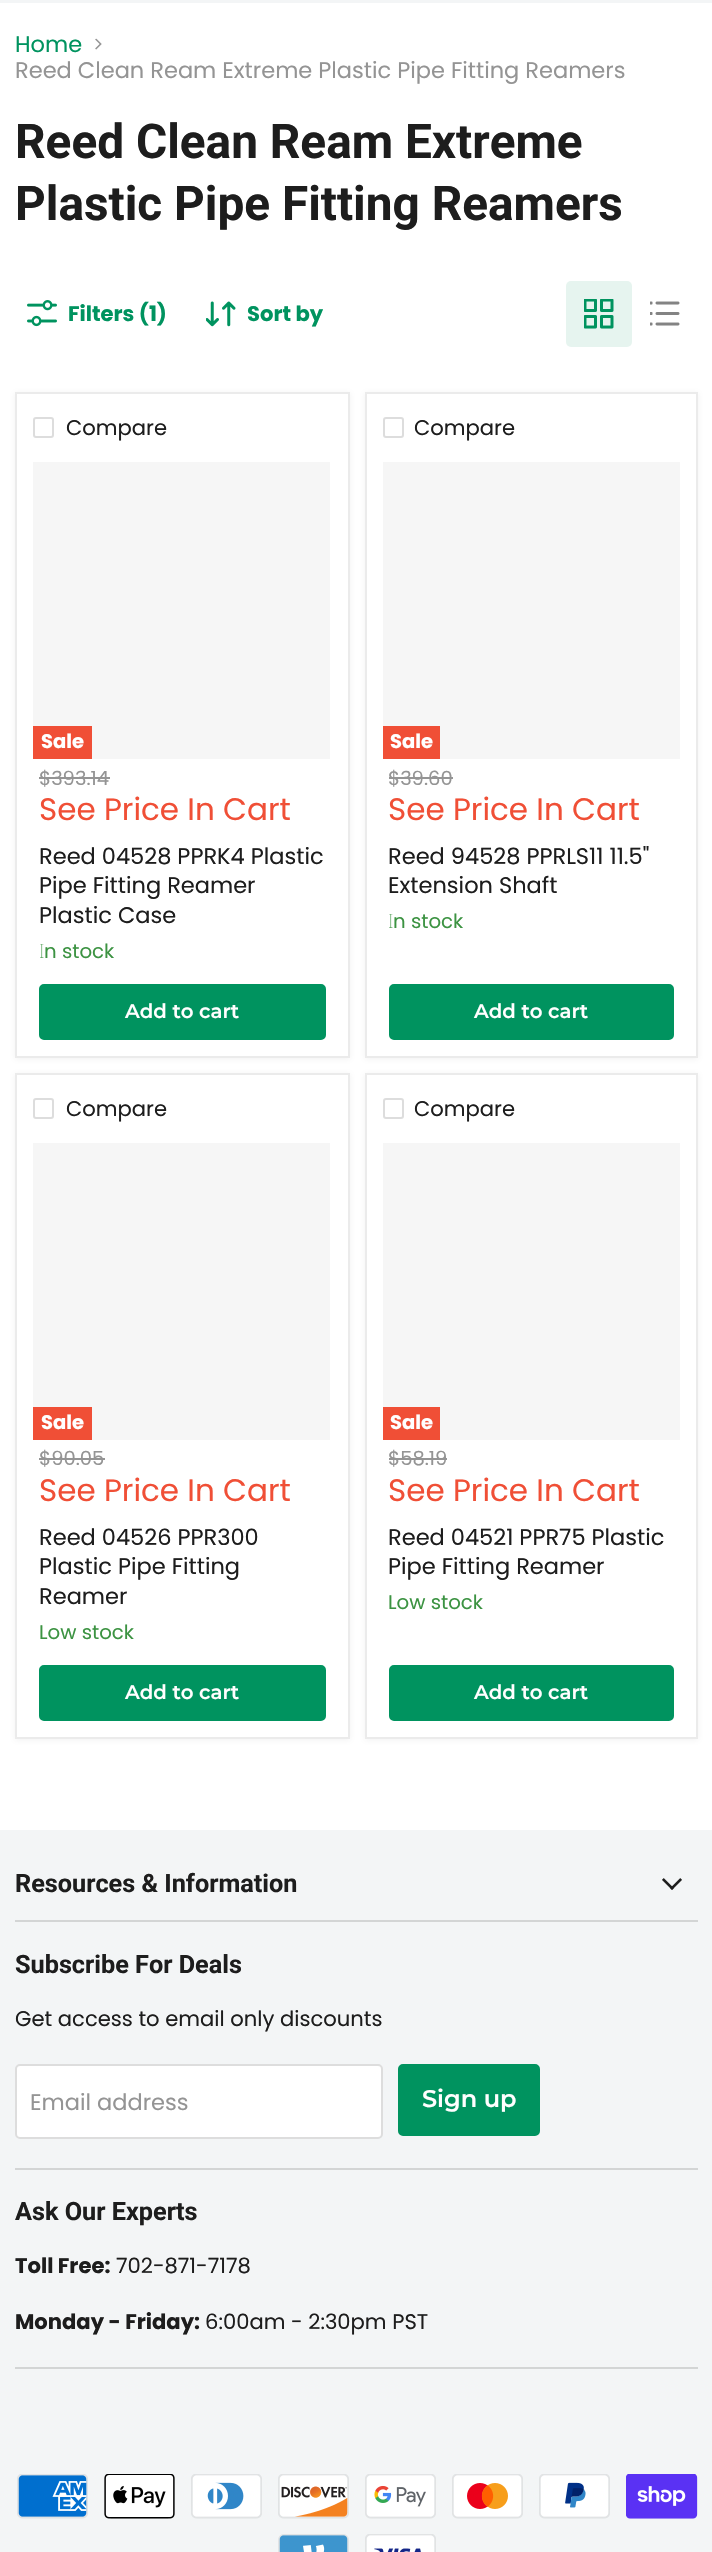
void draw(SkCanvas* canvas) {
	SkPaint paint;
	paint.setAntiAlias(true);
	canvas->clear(0xffffffff);
	paint.setColor(0xfff3f5f6);
	canvas->drawRect(SkRect::MakeXYWH(0, 0, 712, 3), paint);
	SkFont f1(fontMgr->matchFamilyStyle("Poppins", SkFontStyle::Normal()), 22.5);
	f1.setSubpixel(true);
	paint.setColor(0xff00935f);
	canvas->drawString("Home", 15, 52, f1, paint);
	canvas->drawImageRect(SkImages::DeferredFromEncodedData(SkData::MakeFromFileName("img1.png")), SkRect::MakeXYWH(95, 38, 7, 12), SkSamplingOptions());
	paint.setColor(0xff949494);
	canvas->drawString("Reed Clean Ream Extreme Plastic Pipe Fitting Reamers", 15, 78, f1, paint);
	SkFont f2(fontMgr->matchFamilyStyle("Roboto", SkFontStyle::Bold()), 47.75);
	f2.setSubpixel(true);
	paint.setColor(0xff1d1d1d);
	canvas->drawString("Reed Clean Ream Extreme", 15, 158, f2, paint);
	canvas->drawString("Plastic Pipe Fitting Reamers", 15, 220, f2, paint);
	canvas->drawImageRect(SkImages::DeferredFromEncodedData(SkData::MakeFromFileName("img2.png")), SkRect::MakeXYWH(27, 300, 30, 27), SkSamplingOptions());
	SkFont f3(fontMgr->matchFamilyStyle("Poppins", SkFontStyle::Bold()), 21.1);
	f3.setSubpixel(true);
	paint.setColor(0xff00935f);
	canvas->drawString("Filters (1)", 68, 321, f3, paint);
	canvas->drawImageRect(SkImages::DeferredFromEncodedData(SkData::MakeFromFileName("img3.png")), SkRect::MakeXYWH(206, 301, 30, 26), SkSamplingOptions());
	canvas->drawString("Sort by", 247, 321, f3, paint);
	paint.setColor(0xffe6f4ef);
	canvas->drawRoundRect(SkRect::MakeXYWH(566, 281, 66, 66), 5, 5, paint);
	canvas->drawImageRect(SkImages::DeferredFromEncodedData(SkData::MakeFromFileName("img4.png")), SkRect::MakeXYWH(584, 299, 30, 30), SkSamplingOptions());
	canvas->drawImageRect(SkImages::DeferredFromEncodedData(SkData::MakeFromFileName("img5.png")), SkRect::MakeXYWH(650, 301, 30, 25), SkSamplingOptions());
	paint.setColor(0x1c808080);
	paint.setMaskFilter(SkMaskFilter::MakeBlur(kNormal_SkBlurStyle, 3));
	canvas->drawRect(SkRect::MakeXYWH(15, 393, 335, 666), paint);
	paint.setMaskFilter(nullptr);
	paint.setColor(0xffffffff);
	canvas->drawRect(SkRect::MakeXYWH(16, 393, 333, 664), paint);
	paint.setStroke(true);
	paint.setStrokeWidth(2);
	paint.setColor(0xffebebeb);
	canvas->drawRect(SkRect::MakeXYWH(16, 393, 333, 664), paint);
	paint.setColor(0xffdddddd);
	canvas->drawRoundRect(SkRect::MakeXYWH(34, 418, 19, 19), 2, 2, paint);
	SkFont f4(fontMgr->matchFamilyStyle("Poppins", SkFontStyle::Normal()), 21.1);
	f4.setSubpixel(true);
	paint.setStroke(false);
	paint.setColor(0xff1d1d1d);
	canvas->drawString("Compare", 66, 435, f4, paint);
	paint.setColor(0xfff6f6f6);
	canvas->drawRect(SkRect::MakeXYWH(33, 462, 297, 297), paint);
	paint.setColor(0xfff04f36);
	canvas->drawRect(SkRect::MakeXYWH(33, 726, 59, 33), paint);
	SkFont f5(fontMgr->matchFamilyStyle("Poppins", SkFontStyle::Bold()), 19.5);
	f5.setSubpixel(true);
	paint.setColor(0xffffffff);
	canvas->drawString("Sale", 41, 748, f5, paint);
	SkFont f6(fontMgr->matchFamilyStyle("Poppins", SkFontStyle::Normal()), 19.5);
	f6.setSubpixel(true);
	paint.setColor(0xff949494);
	canvas->drawString("$393.14", 39, 785, f6, paint);
	canvas->drawRect(SkRect::MakeXYWH(39, 777, 71, 2), paint);
	SkFont f7(fontMgr->matchFamilyStyle("Poppins", SkFontStyle::Normal()), 31);
	f7.setSubpixel(true);
	paint.setColor(0xfff04f36);
	canvas->drawString("See Price In Cart", 39, 820, f7, paint);
	paint.setColor(0xff1d1d1d);
	canvas->drawString("Reed 04528 PPRK4 Plastic", 39, 864, f1, paint);
	canvas->drawString("Pipe Fitting Reamer", 39, 893, f1, paint);
	canvas->drawString("Plastic Case", 39, 923, f1, paint);
	SkFont f8(fontMgr->matchFamilyStyle("Noto Sans", SkFontStyle(100, SkFontStyle::kNormal_Width, SkFontStyle::kUpright_Slant)), 19.75);
	f8.setSubpixel(true);
	paint.setColor(0xff3c9342);
	canvas->drawString("I", 39, 958, f8, paint);
	SkFont f9(fontMgr->matchFamilyStyle("Poppins", SkFontStyle::Normal()), 19.75);
	f9.setSubpixel(true);
	canvas->drawString("n stock", 44, 958, f9, paint);
	paint.setColor(0xff00935f);
	canvas->drawRoundRect(SkRect::MakeXYWH(40, 985, 285, 54), 4, 4, paint);
	paint.setStroke(true);
	canvas->drawRoundRect(SkRect::MakeXYWH(40, 985, 285, 54), 4, 4, paint);
	SkFont f10(fontMgr->matchFamilyStyle("Montserrat", SkFontStyle(600, SkFontStyle::kNormal_Width, SkFontStyle::kUpright_Slant)), 19.75);
	f10.setSubpixel(true);
	paint.setStroke(false);
	paint.setColor(0xffffffff);
	canvas->drawString("Add to cart", 125, 1018, f10, paint);
	paint.setColor(0x1c808080);
	paint.setMaskFilter(SkMaskFilter::MakeBlur(kNormal_SkBlurStyle, 3));
	canvas->drawRect(SkRect::MakeXYWH(365, 393, 333, 666), paint);
	paint.setMaskFilter(nullptr);
	paint.setColor(0xffffffff);
	canvas->drawRect(SkRect::MakeXYWH(366, 393, 331, 664), paint);
	paint.setStroke(true);
	paint.setColor(0xffebebeb);
	canvas->drawRect(SkRect::MakeXYWH(366, 393, 331, 664), paint);
	paint.setColor(0xffdddddd);
	canvas->drawRoundRect(SkRect::MakeXYWH(384, 418, 19, 19), 2, 2, paint);
	paint.setStroke(false);
	paint.setColor(0xff1d1d1d);
	canvas->drawString("Compare", 414, 435, f4, paint);
	paint.setColor(0xfff6f6f6);
	canvas->drawRect(SkRect::MakeXYWH(383, 462, 297, 297), paint);
	paint.setColor(0xfff04f36);
	canvas->drawRect(SkRect::MakeXYWH(383, 726, 57, 33), paint);
	paint.setColor(0xffffffff);
	canvas->drawString("Sale", 390, 748, f5, paint);
	paint.setColor(0xff949494);
	canvas->drawString("$39.60", 388, 785, f6, paint);
	canvas->drawRect(SkRect::MakeXYWH(389, 777, 64, 2), paint);
	paint.setColor(0xfff04f36);
	canvas->drawString("See Price In Cart", 388, 820, f7, paint);
	paint.setColor(0xff1d1d1d);
	canvas->drawString("Reed 94528 PPRLS11 11.5\"", 388, 864, f1, paint);
	canvas->drawString("Extension Shaft", 388, 893, f1, paint);
	paint.setColor(0xff3c9342);
	canvas->drawString("I", 388, 928, f8, paint);
	canvas->drawString("n stock", 393, 928, f9, paint);
	paint.setColor(0xff00935f);
	canvas->drawRoundRect(SkRect::MakeXYWH(390, 985, 283, 54), 4, 4, paint);
	paint.setStroke(true);
	canvas->drawRoundRect(SkRect::MakeXYWH(390, 985, 283, 54), 4, 4, paint);
	paint.setStroke(false);
	paint.setColor(0xffffffff);
	canvas->drawString("Add to cart", 474, 1018, f10, paint);
	paint.setColor(0x1c808080);
	paint.setMaskFilter(SkMaskFilter::MakeBlur(kNormal_SkBlurStyle, 3));
	canvas->drawRect(SkRect::MakeXYWH(15, 1074, 335, 666), paint);
	paint.setMaskFilter(nullptr);
	paint.setColor(0xffffffff);
	canvas->drawRect(SkRect::MakeXYWH(16, 1074, 333, 664), paint);
	paint.setStroke(true);
	paint.setColor(0xffebebeb);
	canvas->drawRect(SkRect::MakeXYWH(16, 1074, 333, 664), paint);
	paint.setColor(0xffdddddd);
	canvas->drawRoundRect(SkRect::MakeXYWH(34, 1099, 19, 19), 2, 2, paint);
	paint.setStroke(false);
	paint.setColor(0xff1d1d1d);
	canvas->drawString("Compare", 66, 1116, f4, paint);
	paint.setColor(0xfff6f6f6);
	canvas->drawRect(SkRect::MakeXYWH(33, 1143, 297, 297), paint);
	paint.setColor(0xfff04f36);
	canvas->drawRect(SkRect::MakeXYWH(33, 1407, 59, 33), paint);
	paint.setColor(0xffffffff);
	canvas->drawString("Sale", 41, 1429, f5, paint);
	paint.setColor(0xff949494);
	canvas->drawString("$90.05", 39, 1465, f6, paint);
	canvas->drawRect(SkRect::MakeXYWH(39, 1458, 66, 2), paint);
	paint.setColor(0xfff04f36);
	canvas->drawString("See Price In Cart", 39, 1501, f7, paint);
	paint.setColor(0xff1d1d1d);
	canvas->drawString("Reed 04526 PPR300", 39, 1545, f1, paint);
	canvas->drawString("Plastic Pipe Fitting", 39, 1574, f1, paint);
	canvas->drawString("Reamer", 39, 1604, f1, paint);
	paint.setColor(0xff3c9342);
	canvas->drawString("Low stock", 39, 1639, f9, paint);
	paint.setColor(0xff00935f);
	canvas->drawRoundRect(SkRect::MakeXYWH(40, 1666, 285, 54), 4, 4, paint);
	paint.setStroke(true);
	canvas->drawRoundRect(SkRect::MakeXYWH(40, 1666, 285, 54), 4, 4, paint);
	paint.setStroke(false);
	paint.setColor(0xffffffff);
	canvas->drawString("Add to cart", 125, 1699, f10, paint);
	paint.setColor(0x1c808080);
	paint.setMaskFilter(SkMaskFilter::MakeBlur(kNormal_SkBlurStyle, 3));
	canvas->drawRect(SkRect::MakeXYWH(365, 1074, 333, 666), paint);
	paint.setMaskFilter(nullptr);
	paint.setColor(0xffffffff);
	canvas->drawRect(SkRect::MakeXYWH(366, 1074, 331, 664), paint);
	paint.setStroke(true);
	paint.setColor(0xffebebeb);
	canvas->drawRect(SkRect::MakeXYWH(366, 1074, 331, 664), paint);
	paint.setColor(0xffdddddd);
	canvas->drawRoundRect(SkRect::MakeXYWH(384, 1099, 19, 19), 2, 2, paint);
	paint.setStroke(false);
	paint.setColor(0xff1d1d1d);
	canvas->drawString("Compare", 414, 1116, f4, paint);
	paint.setColor(0xfff6f6f6);
	canvas->drawRect(SkRect::MakeXYWH(383, 1143, 297, 297), paint);
	paint.setColor(0xfff04f36);
	canvas->drawRect(SkRect::MakeXYWH(383, 1407, 57, 33), paint);
	paint.setColor(0xffffffff);
	canvas->drawString("Sale", 390, 1429, f5, paint);
	paint.setColor(0xff949494);
	canvas->drawString("$58.19", 388, 1465, f6, paint);
	canvas->drawRect(SkRect::MakeXYWH(389, 1458, 58, 2), paint);
	paint.setColor(0xfff04f36);
	canvas->drawString("See Price In Cart", 388, 1501, f7, paint);
	paint.setColor(0xff1d1d1d);
	canvas->drawString("Reed 04521 PPR75 Plastic", 388, 1545, f1, paint);
	canvas->drawString("Pipe Fitting Reamer", 388, 1574, f1, paint);
	paint.setColor(0xff3c9342);
	canvas->drawString("Low stock", 388, 1609, f9, paint);
	paint.setColor(0xff00935f);
	canvas->drawRoundRect(SkRect::MakeXYWH(390, 1666, 283, 54), 4, 4, paint);
	paint.setStroke(true);
	canvas->drawRoundRect(SkRect::MakeXYWH(390, 1666, 283, 54), 4, 4, paint);
	paint.setStroke(false);
	paint.setColor(0xffffffff);
	canvas->drawString("Add to cart", 474, 1699, f10, paint);
	paint.setColor(0xfff3f5f6);
	canvas->drawRect(SkRect::MakeXYWH(0, 1830, 712, 722), paint);
	paint.setColor(0xffd3d5d5);
	canvas->drawRect(SkRect::MakeXYWH(15, 1920, 683, 2), paint);
	SkFont f11(fontMgr->matchFamilyStyle("Roboto", SkFontStyle::Bold()), 25.25);
	f11.setSubpixel(true);
	paint.setColor(0xff1d1d1d);
	canvas->drawString("Resources & Information", 15, 1892, f11, paint);
	canvas->drawImageRect(SkImages::DeferredFromEncodedData(SkData::MakeFromFileName("img6.png")), SkRect::MakeXYWH(662, 1878, 20, 12), SkSamplingOptions());
	paint.setColor(0xffd3d5d5);
	canvas->drawRect(SkRect::MakeXYWH(15, 2168, 683, 2), paint);
	paint.setColor(0xff1d1d1d);
	canvas->drawString("Subscribe For Deals", 15, 1973, f11, paint);
	canvas->drawString("Get access to email only discounts", 15, 2026, f4, paint);
	paint.setColor(0xffffffff);
	canvas->drawRoundRect(SkRect::MakeXYWH(16, 2065, 366, 73), 4, 4, paint);
	paint.setStroke(true);
	paint.setColor(0xffdddddd);
	canvas->drawRoundRect(SkRect::MakeXYWH(16, 2065, 366, 73), 4, 4, paint);
	paint.setStroke(false);
	paint.setColor(0xff949494);
	canvas->drawString("Email address", 30, 2110, f1, paint);
	paint.setColor(0xff00935f);
	canvas->drawRoundRect(SkRect::MakeXYWH(399, 2065, 140, 70), 4, 4, paint);
	paint.setStroke(true);
	canvas->drawRoundRect(SkRect::MakeXYWH(399, 2065, 140, 70), 4, 4, paint);
	SkFont f12(fontMgr->matchFamilyStyle("Montserrat", SkFontStyle(600, SkFontStyle::kNormal_Width, SkFontStyle::kUpright_Slant)), 24);
	f12.setSubpixel(true);
	paint.setStroke(false);
	paint.setColor(0xffffffff);
	canvas->drawString("Sign up", 422, 2107, f12, paint);
	paint.setColor(0xffd3d5d5);
	canvas->drawRect(SkRect::MakeXYWH(15, 2367, 683, 2), paint);
	paint.setColor(0xff1d1d1d);
	canvas->drawString("Ask Our Experts", 15, 2220, f11, paint);
	canvas->drawString("Toll Free:", 15, 2273, f3, paint);
	canvas->drawString("702-871-7178", 116, 2273, f4, paint);
	canvas->drawString("Monday - Friday:", 15, 2329, f3, paint);
	canvas->drawString("6:00am - 2:30pm PST", 205, 2329, f4, paint);
	canvas->drawImageRect(SkImages::DeferredFromEncodedData(SkData::MakeFromFileName("img7.png")), SkRect::MakeXYWH(17, 2474, 71, 45), SkSamplingOptions());
	canvas->drawImageRect(SkImages::DeferredFromEncodedData(SkData::MakeFromFileName("img8.png")), SkRect::MakeXYWH(104, 2474, 71, 45), SkSamplingOptions());
	canvas->drawImageRect(SkImages::DeferredFromEncodedData(SkData::MakeFromFileName("img9.png")), SkRect::MakeXYWH(191, 2474, 71, 45), SkSamplingOptions());
	canvas->drawImageRect(SkImages::DeferredFromEncodedData(SkData::MakeFromFileName("img10.png")), SkRect::MakeXYWH(278, 2474, 71, 45), SkSamplingOptions());
	canvas->drawImageRect(SkImages::DeferredFromEncodedData(SkData::MakeFromFileName("img11.png")), SkRect::MakeXYWH(365, 2474, 71, 45), SkSamplingOptions());
	canvas->drawImageRect(SkImages::DeferredFromEncodedData(SkData::MakeFromFileName("img12.png")), SkRect::MakeXYWH(452, 2474, 71, 45), SkSamplingOptions());
	canvas->drawImageRect(SkImages::DeferredFromEncodedData(SkData::MakeFromFileName("img13.png")), SkRect::MakeXYWH(539, 2474, 71, 45), SkSamplingOptions());
	canvas->drawImageRect(SkImages::DeferredFromEncodedData(SkData::MakeFromFileName("img14.png")), SkRect::MakeXYWH(626, 2474, 72, 45), SkSamplingOptions());
	canvas->drawImageRect(SkImages::DeferredFromEncodedData(SkData::MakeFromFileName("img15.png")), SkRect::MakeXYWH(278, 2534, 71, 18), SkSamplingOptions());
	canvas->drawImageRect(SkImages::DeferredFromEncodedData(SkData::MakeFromFileName("img16.png")), SkRect::MakeXYWH(365, 2534, 71, 18), SkSamplingOptions());
}
